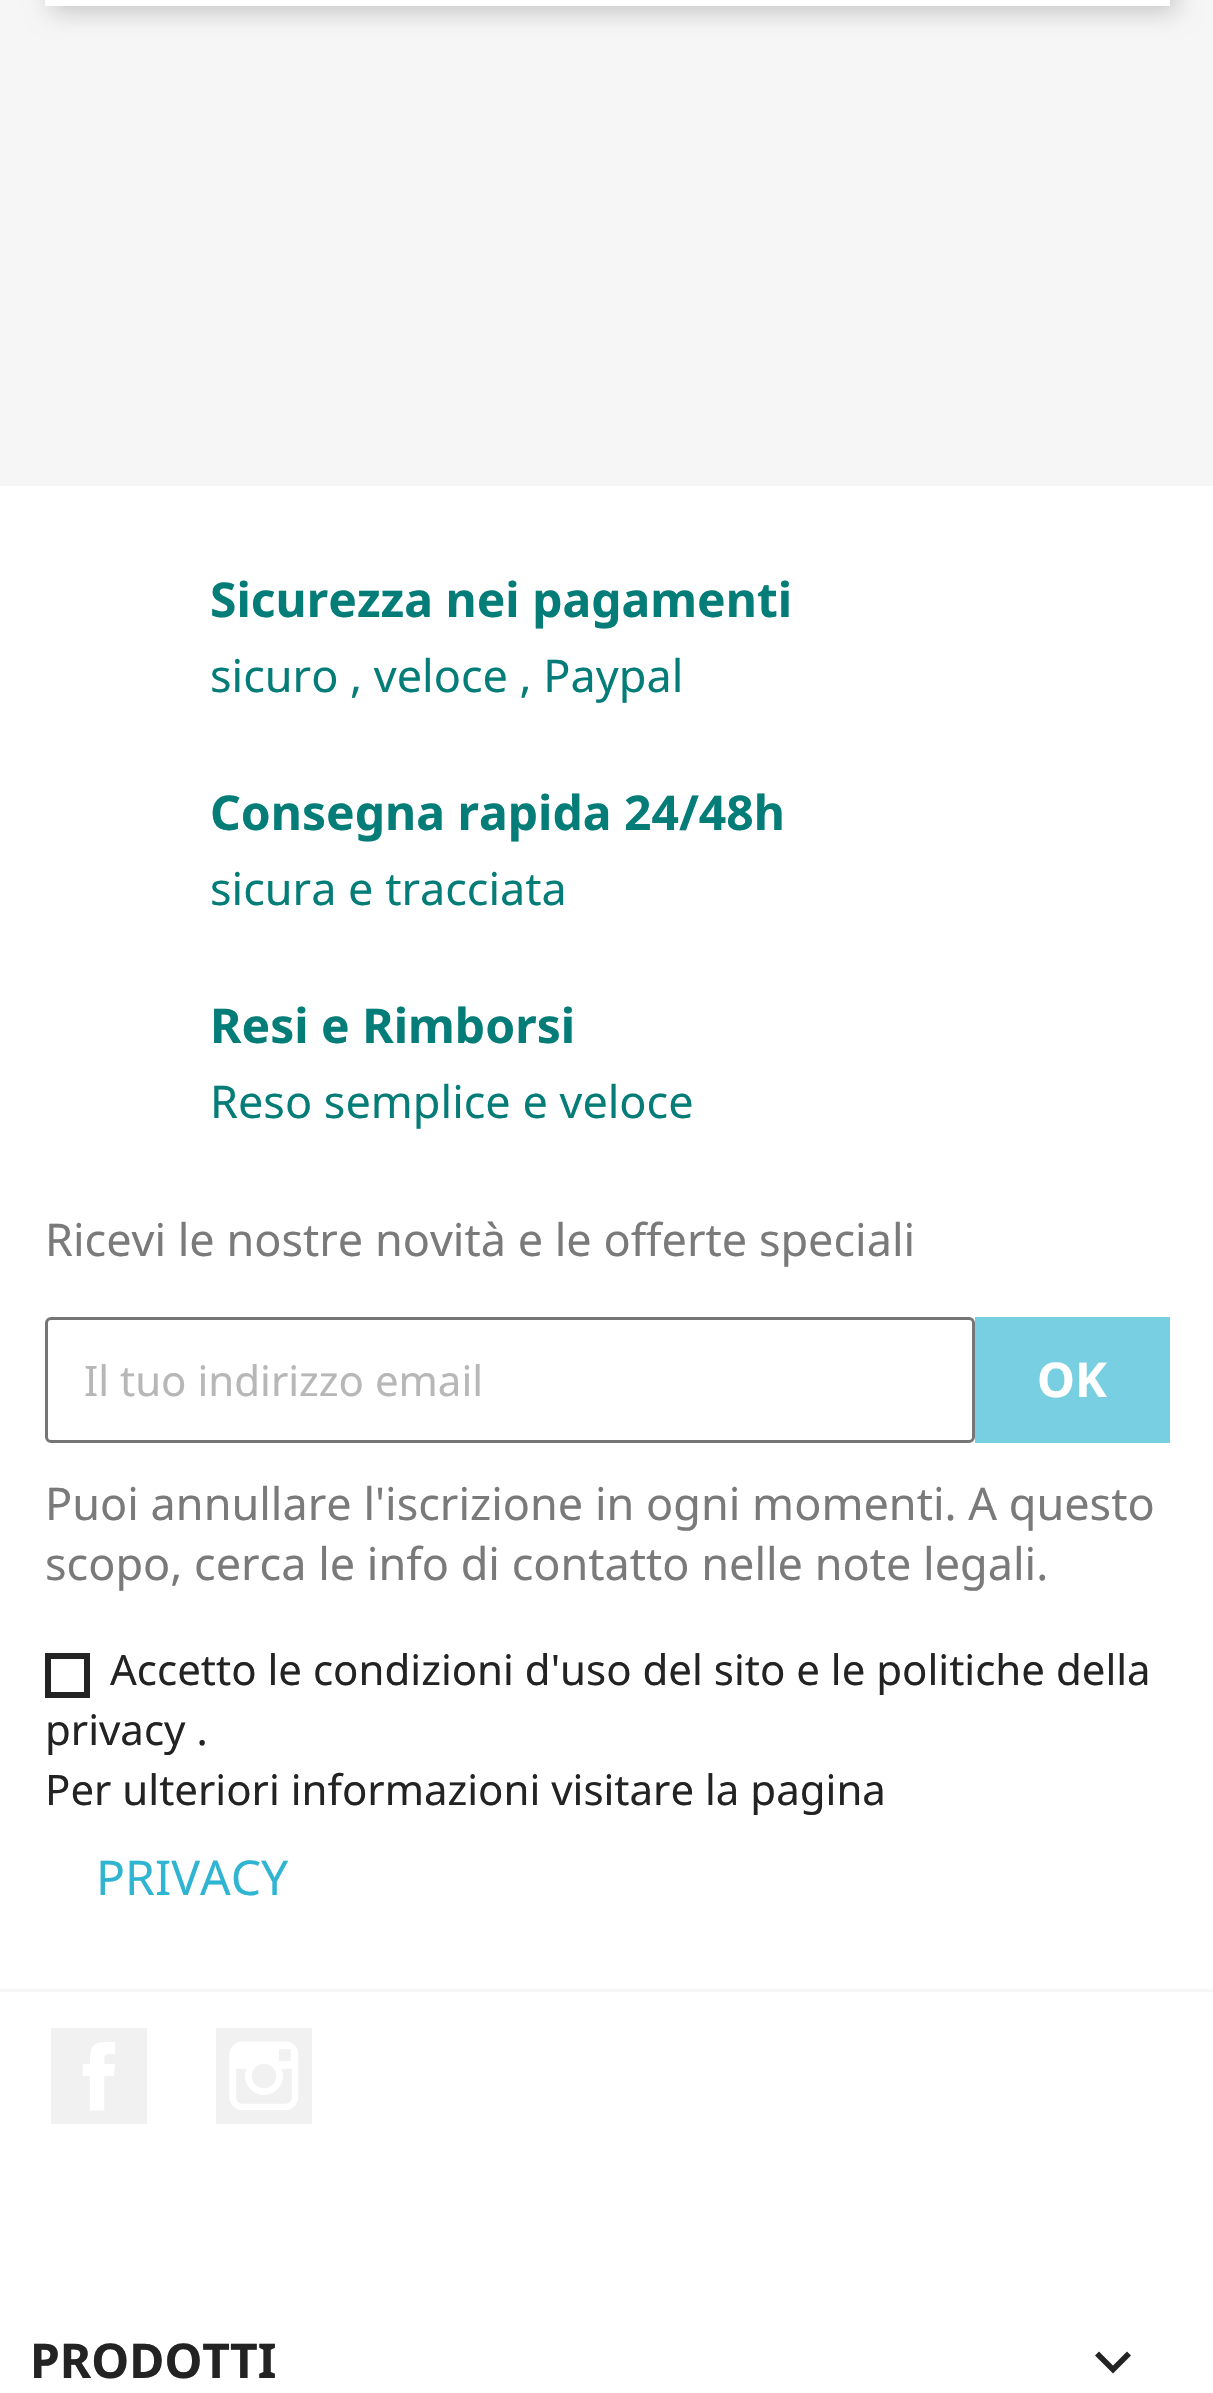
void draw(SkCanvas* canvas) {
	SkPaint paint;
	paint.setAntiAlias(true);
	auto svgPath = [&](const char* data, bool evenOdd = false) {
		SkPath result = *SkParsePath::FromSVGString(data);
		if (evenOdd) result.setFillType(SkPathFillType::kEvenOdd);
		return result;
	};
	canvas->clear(0xffffffff);
	paint.setColor(0xfff6f6f6);
	canvas->drawRect(SkRect::MakeXYWH(0, 0, 1213, 486), paint);
	paint.setColor(0x33000000);
	paint.setMaskFilter(SkMaskFilter::MakeBlur(kNormal_SkBlurStyle, 12));
	canvas->drawRect(SkRect::MakeXYWH(51, -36, 1125, 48), paint);
	paint.setMaskFilter(nullptr);
	paint.setColor(0xffffffff);
	canvas->drawRect(SkRect::MakeXYWH(45, 0, 1125, 6), paint);
	SkFont f1(fontMgr->matchFamilyStyle("Noto Sans", SkFontStyle::Bold()), 48);
	f1.setSubpixel(true);
	paint.setColor(0xff047c77);
	canvas->drawString("Sicurezza nei pagamenti", 210, 617, f1, paint);
	SkFont f2(fontMgr->matchFamilyStyle("Noto Sans", SkFontStyle::Normal()), 45);
	f2.setSubpixel(true);
	canvas->drawString("sicuro , veloce , Paypal", 210, 692, f2, paint);
	canvas->drawString("Consegna rapida 24/48h", 210, 830, f1, paint);
	canvas->drawString("sicura e tracciata", 210, 905, f2, paint);
	canvas->drawString("Resi e Rimborsi", 210, 1043, f1, paint);
	canvas->drawString("Reso semplice e veloce", 210, 1118, f2, paint);
	paint.setColor(0xfff6f6f6);
	canvas->drawRect(SkRect::MakeXYWH(0, 1989, 1213, 3), paint);
	paint.setColor(0xff7a7a7a);
	canvas->drawString("Ricevi le nostre novità e le offerte speciali", 45, 1256, f2, paint);
	paint.setStroke(true);
	paint.setStrokeWidth(3);
	paint.setColor(0xff767676);
	canvas->drawRoundRect(SkRect::MakeXYWH(46.5, 1318.5, 927, 123), 4.5, 4.5, paint);
	SkFont f3(fontMgr->matchFamilyStyle("Noto Sans", SkFontStyle::Normal()), 42);
	f3.setSubpixel(true);
	paint.setStroke(false);
	paint.setColor(0xffb7b7b7);
	canvas->drawString("Il tuo indirizzo email", 84, 1396, f3, paint);
	paint.setColor(0xff78cfe2);
	canvas->drawRect(SkRect::MakeXYWH(975, 1317, 195, 126), paint);
	paint.setColor(0xffffffff);
	canvas->drawString("OK", 1037, 1397, f1, paint);
	paint.setColor(0xff7a7a7a);
	canvas->drawString("Puoi annullare l'iscrizione in ogni momenti. A questo", 45, 1520, f2, paint);
	canvas->drawString("scopo, cerca le info di contatto nelle note legali.", 45, 1580, f2, paint);
	paint.setStroke(true);
	paint.setStrokeWidth(6);
	paint.setColor(0xff232323);
	canvas->drawRect(SkRect::MakeXYWH(48, 1656, 39, 39), paint);
	paint.setStroke(false);
	canvas->drawString("Accetto le condizioni d'uso del sito e le politiche della", 110, 1685, f3, paint);
	canvas->drawString("privacy .", 45, 1745, f3, paint);
	canvas->drawString("Per ulteriori informazioni visitare la pagina", 45, 1805, f3, paint);
	SkFont f4(fontMgr->matchFamilyStyle("Noto Sans", SkFontStyle::Normal()), 48);
	f4.setSubpixel(true);
	paint.setColor(0xff2fb5d2);
	canvas->drawString("PRIVACY", 96, 1895, f4, paint);
	paint.setColor(0xfff1f1f1);
	canvas->drawRect(SkRect::MakeXYWH(51, 2028, 96, 96), paint);
	canvas->drawImageRect(SkImages::DeferredFromEncodedData(SkData::MakeFromFileName("img1.png")), SkRect::MakeXYWH(82, 2042, 33, 69), SkSamplingOptions());
	canvas->drawRect(SkRect::MakeXYWH(216, 2028, 96, 96), paint);
	canvas->drawImageRect(SkImages::DeferredFromEncodedData(SkData::MakeFromFileName("img2.png")), SkRect::MakeXYWH(229, 2041, 70, 69), SkSamplingOptions());
	paint.setColor(0xff232323);
	canvas->drawString("PRODOTTI", 30, 2378, f1, paint);
	canvas->drawPath(svgPath("M1099 2351.5L1113 2365.5L1127 2351.5L1131 2355.5L1113 2373.5L1095 2355.5Z"), paint);
}
